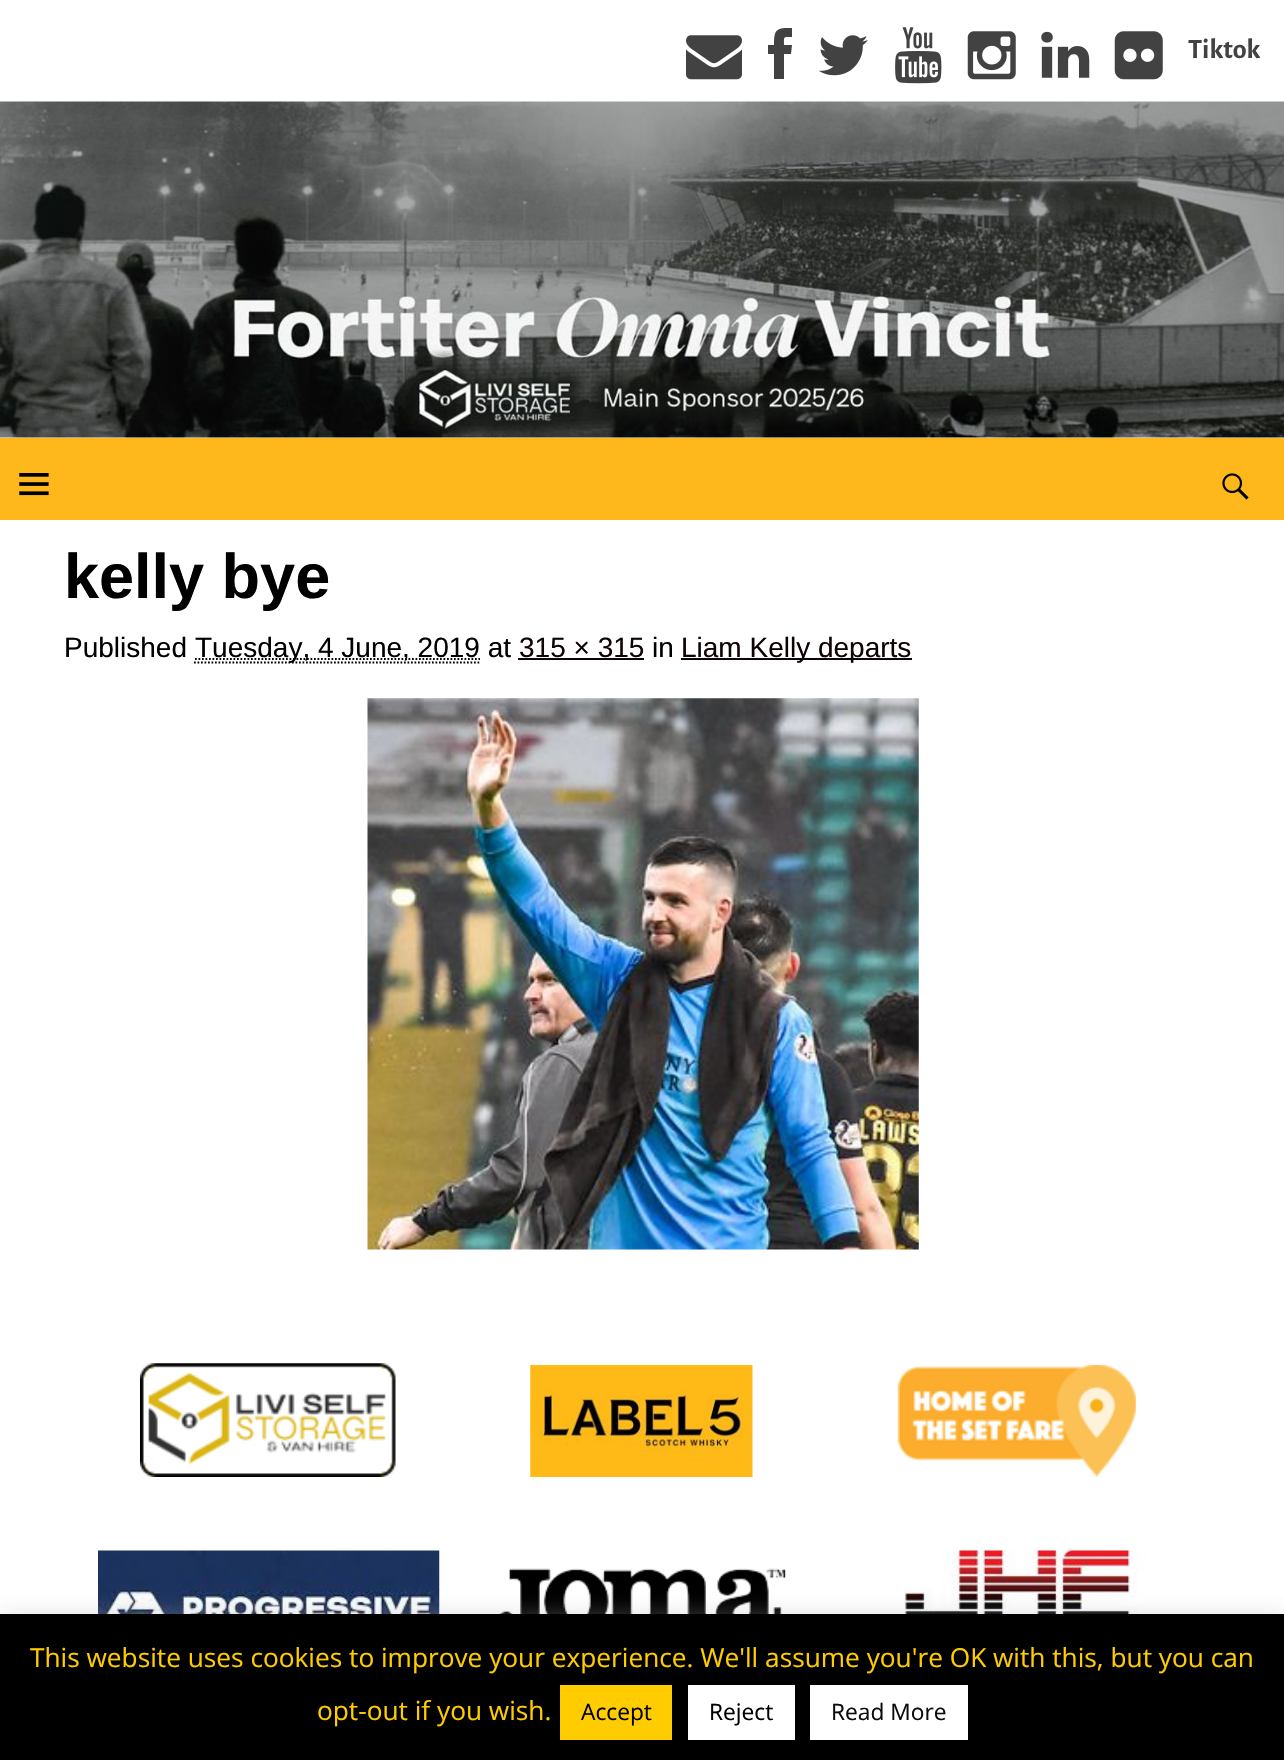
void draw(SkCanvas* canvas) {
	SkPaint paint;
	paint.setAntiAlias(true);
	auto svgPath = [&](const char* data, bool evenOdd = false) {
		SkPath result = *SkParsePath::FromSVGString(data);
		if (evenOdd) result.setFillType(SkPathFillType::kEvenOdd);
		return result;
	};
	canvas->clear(0xffffffff);
	canvas->drawImageRect(SkImages::DeferredFromEncodedData(SkData::MakeFromFileName("img1.png")), SkRect::MakeXYWH(686, 35, 56, 45), SkSamplingOptions());
	paint.setColor(0xff424242);
	canvas->drawPath(svgPath("M784 45H792L791 54H784V79H774V54H768V45H774C774 28 777 28 792 28V37C783 37 784 36 784 45Z"), paint);
	canvas->drawImageRect(SkImages::DeferredFromEncodedData(SkData::MakeFromFileName("img2.png")), SkRect::MakeXYWH(818, 35, 50, 41), SkSamplingOptions());
	canvas->drawImageRect(SkImages::DeferredFromEncodedData(SkData::MakeFromFileName("img3.png")), SkRect::MakeXYWH(895, 27, 47, 57), SkSamplingOptions());
	canvas->drawImageRect(SkImages::DeferredFromEncodedData(SkData::MakeFromFileName("img4.png")), SkRect::MakeXYWH(967, 31, 49, 49), SkSamplingOptions());
	canvas->drawImageRect(SkImages::DeferredFromEncodedData(SkData::MakeFromFileName("img5.png")), SkRect::MakeXYWH(1041, 31, 49, 47), SkSamplingOptions());
	canvas->drawImageRect(SkImages::DeferredFromEncodedData(SkData::MakeFromFileName("img6.png")), SkRect::MakeXYWH(1114, 31, 49, 49), SkSamplingOptions());
	SkFont f1(fontMgr->matchFamilyStyle("Alegreya Sans", SkFontStyle::Bold()), 28);
	f1.setSubpixel(true);
	canvas->drawString("Tiktok", 1188, 58, f1, paint);
	canvas->drawImageRect(SkImages::DeferredFromEncodedData(SkData::MakeFromFileName("img7.png")), SkRect::MakeXYWH(0, 101, 1284, 337), SkSamplingOptions());
	paint.setColor(0xffffb81c);
	canvas->drawRect(SkRect::MakeXYWH(0, 438, 1284, 82), paint);
	canvas->drawImageRect(SkImages::DeferredFromEncodedData(SkData::MakeFromFileName("img8.png")), SkRect::MakeXYWH(19, 473, 30, 23), SkSamplingOptions());
	canvas->drawImageRect(SkImages::DeferredFromEncodedData(SkData::MakeFromFileName("img9.png")), SkRect::MakeXYWH(1222, 473, 27, 27), SkSamplingOptions());
	SkFont f2(fontMgr->matchFamilyStyle("Liberation Sans", SkFontStyle::Bold()), 63);
	f2.setSubpixel(true);
	paint.setColor(0xff000000);
	canvas->drawString("kelly bye", 64, 598, f2, paint);
	SkFont f3(fontMgr->matchFamilyStyle("Liberation Sans", SkFontStyle::Normal()), 28);
	f3.setSubpixel(true);
	canvas->drawString("Published", 64, 657, f3, paint);
	paint.setStroke(true);
	paint.setStrokeWidth(1.8);
	paint.setPathEffect(SkDashPathEffect::Make({{1.75f, 1.75f}}, 0));
	canvas->drawPath(svgPath("M194 662.5H479.5"), paint);
	paint.setPathEffect(nullptr);
	paint.setPathEffect(SkDashPathEffect::Make({{1.75f, 1.75f}}, 0));
	canvas->drawPath(svgPath("M195 659H480"), paint);
	paint.setPathEffect(nullptr);
	paint.setStroke(false);
	canvas->drawString("Tuesday, 4 June, 2019 at", 195, 657, f3, paint);
	paint.setColor(0xff0f0303);
	canvas->drawString("315 × 315", 519, 657, f3, paint);
	canvas->drawRect(SkRect::MakeXYWH(518, 658, 126, 2), paint);
	paint.setColor(0xff000000);
	canvas->drawString("in", 652, 657, f3, paint);
	paint.setColor(0xff0f0303);
	canvas->drawRect(SkRect::MakeXYWH(681, 658, 231, 2), paint);
	canvas->drawString("Liam Kelly departs", 681, 657, f3, paint);
	canvas->drawImageRect(SkImages::DeferredFromEncodedData(SkData::MakeFromFileName("img10.png")), SkRect::MakeXYWH(367, 698, 552, 552), SkSamplingOptions());
	canvas->drawImageRect(SkImages::DeferredFromEncodedData(SkData::MakeFromFileName("img11.png")), SkRect::MakeXYWH(140, 1363, 256, 114), SkSamplingOptions());
	canvas->drawImageRect(SkImages::DeferredFromEncodedData(SkData::MakeFromFileName("img12.png")), SkRect::MakeXYWH(530, 1365, 223, 112), SkSamplingOptions());
	canvas->drawImageRect(SkImages::DeferredFromEncodedData(SkData::MakeFromFileName("img13.png")), SkRect::MakeXYWH(897, 1365, 239, 112), SkSamplingOptions());
	canvas->drawImageRect(SkImages::DeferredFromEncodedData(SkData::MakeFromFileName("img14.png")), SkRect::MakeXYWH(98, 1550, 342, 64), SkSamplingOptions());
	canvas->drawImageRect(SkImages::DeferredFromEncodedData(SkData::MakeFromFileName("img15.png")), SkRect::MakeXYWH(499, 1568, 287, 46), SkSamplingOptions());
	canvas->drawImageRect(SkImages::DeferredFromEncodedData(SkData::MakeFromFileName("img16.png")), SkRect::MakeXYWH(885, 1550, 263, 64), SkSamplingOptions());
	paint.setColor(0x4dacabab);
	paint.setMaskFilter(SkMaskFilter::MakeBlur(kNormal_SkBlurStyle, 9));
	canvas->drawRect(SkRect::MakeXYWH(0, 1612, 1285, 147), paint);
	paint.setMaskFilter(nullptr);
	paint.setColor(0xff000000);
	canvas->drawRect(SkRect::MakeXYWH(0, 1614, 1284, 146), paint);
	SkFont f4(fontMgr->matchFamilyStyle("Open Sans", SkFontStyle::Normal()), 26.25);
	f4.setSubpixel(true);
	paint.setColor(0xffffcc00);
	canvas->drawString("This website uses cookies to improve your experience. We'll assume you're OK with this, but you can", 30, 1667, f4, paint);
	canvas->drawString("opt-out if you wish.", 317, 1720, f4, paint);
	canvas->drawRect(SkRect::MakeXYWH(560, 1685, 112, 55), paint);
	SkFont f5(fontMgr->matchFamilyStyle("Open Sans", SkFontStyle::Normal()), 22.75);
	f5.setSubpixel(true);
	paint.setColor(0xff000000);
	canvas->drawString("Accept", 581, 1720, f5, paint);
	paint.setColor(0xffffffff);
	canvas->drawRect(SkRect::MakeXYWH(688, 1685, 107, 55), paint);
	paint.setColor(0xff000000);
	canvas->drawString("Reject", 709, 1720, f5, paint);
	paint.setColor(0xffffffff);
	canvas->drawRect(SkRect::MakeXYWH(810, 1685, 158, 55), paint);
	paint.setColor(0xff0c0c0c);
	canvas->drawString("Read More", 831, 1720, f5, paint);
}
